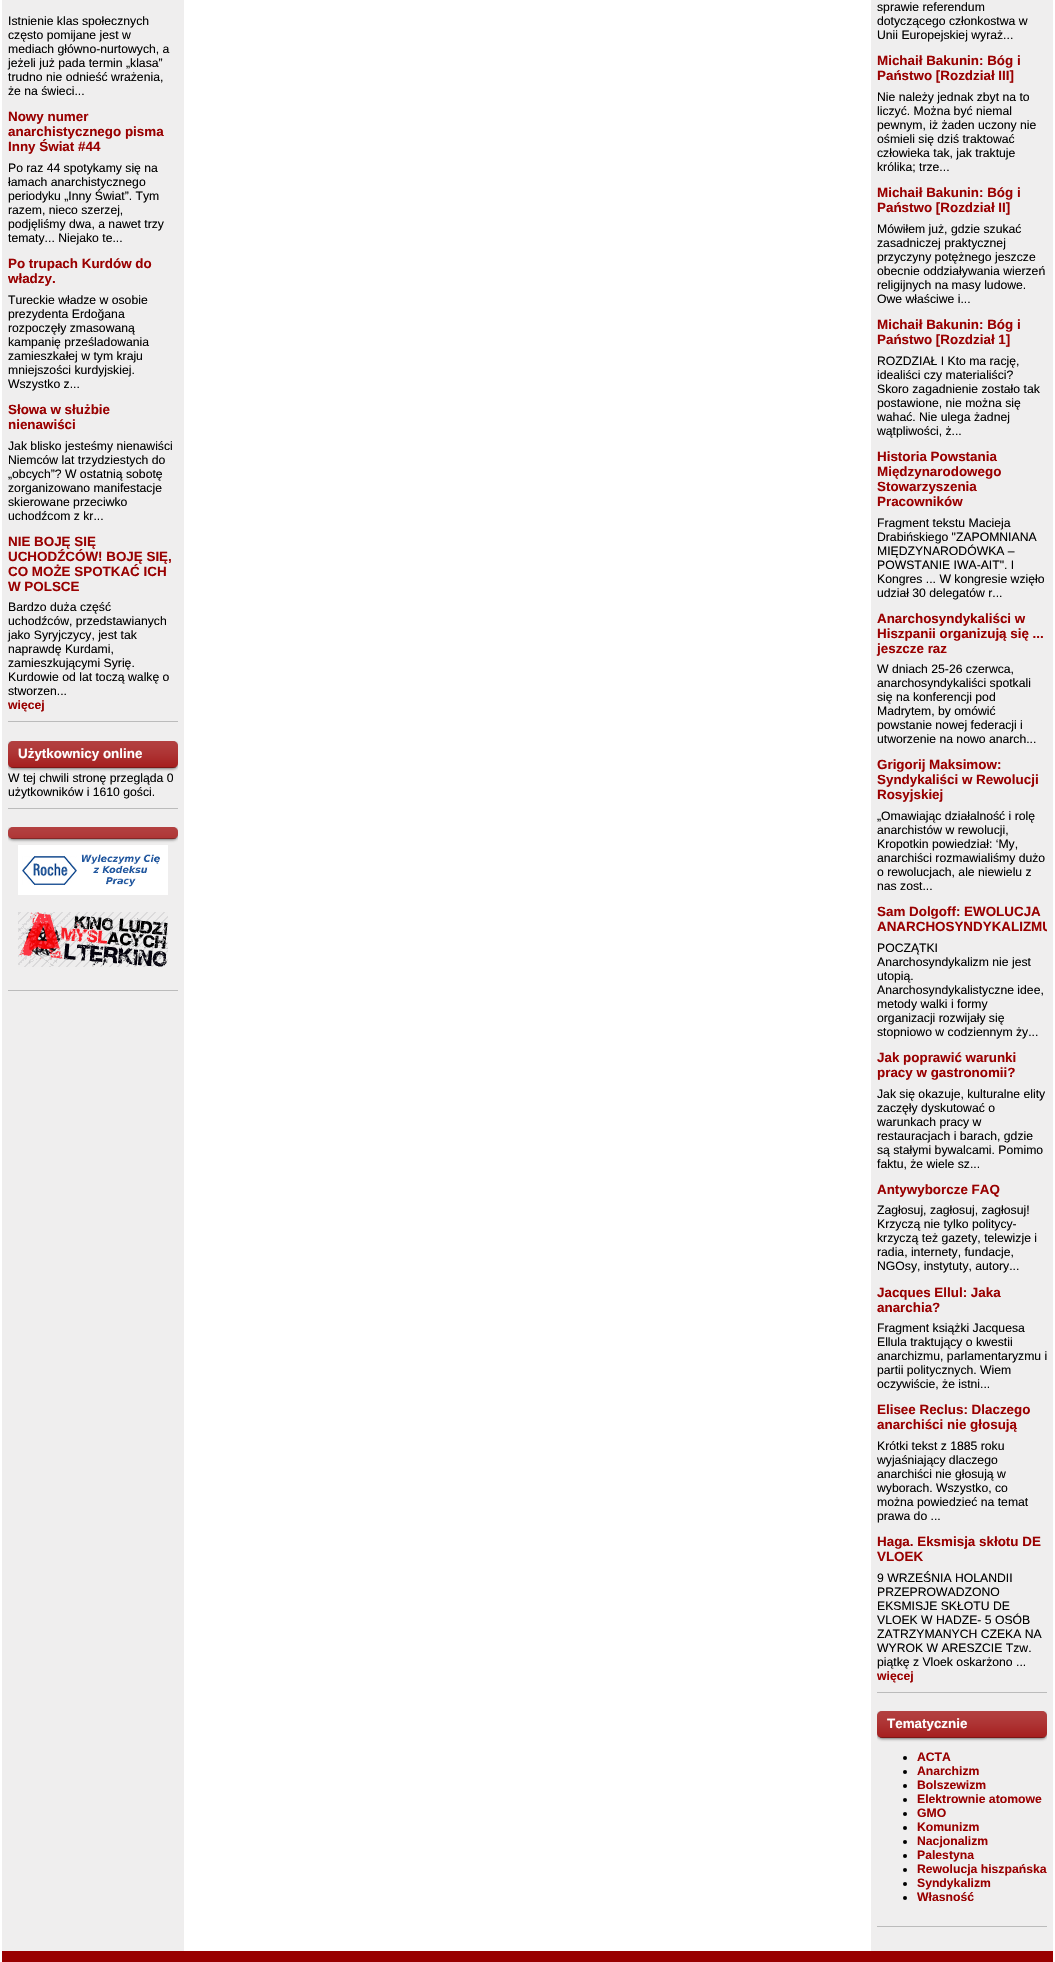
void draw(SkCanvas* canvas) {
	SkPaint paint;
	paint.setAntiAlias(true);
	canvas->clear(0xffffffff);
	paint.setColor(0xffefeeee);
	canvas->drawRect(SkRect::MakeXYWH(2, 0, 182, 1951), paint);
	paint.setColor(0xffbbbbbb);
	canvas->drawRect(SkRect::MakeXYWH(8, 721, 170, 1), paint);
	SkFont f1(fontMgr->matchFamilyStyle("Liberation Sans", SkFontStyle::Normal()), 12.2);
	f1.setSubpixel(true);
	paint.setColor(0xff000000);
	canvas->drawString("Istnienie klas społecznych", 8, 25, f1, paint);
	canvas->drawString("często pomijane jest w", 8, 39, f1, paint);
	canvas->drawString("mediach główno-nurtowych, a", 8, 53, f1, paint);
	canvas->drawString("jeżeli już pada termin „klasa”", 8, 67, f1, paint);
	canvas->drawString("trudno nie odnieść wrażenia,", 8, 81, f1, paint);
	canvas->drawString("że na świeci...", 8, 95, f1, paint);
	SkFont f2(fontMgr->matchFamilyStyle("Liberation Sans", SkFontStyle::Bold()), 13.4);
	f2.setSubpixel(true);
	paint.setColor(0xff990000);
	canvas->drawString("Nowy numer", 8, 121, f2, paint);
	canvas->drawString("anarchistycznego pisma", 8, 136, f2, paint);
	canvas->drawString("Inny Świat #44", 8, 151, f2, paint);
	paint.setColor(0xff000000);
	canvas->drawString("Po raz 44 spotykamy się na", 8, 172, f1, paint);
	canvas->drawString("łamach anarchistycznego", 8, 186, f1, paint);
	canvas->drawString("periodyku „Inny Świat”. Tym", 8, 200, f1, paint);
	canvas->drawString("razem, nieco szerzej,", 8, 214, f1, paint);
	canvas->drawString("podjęliśmy dwa, a nawet trzy", 8, 228, f1, paint);
	canvas->drawString("tematy... Niejako te...", 8, 242, f1, paint);
	paint.setColor(0xff990000);
	canvas->drawString("Po trupach Kurdów do", 8, 268, f2, paint);
	canvas->drawString("władzy.", 8, 283, f2, paint);
	paint.setColor(0xff000000);
	canvas->drawString("Tureckie władze w osobie", 8, 304, f1, paint);
	canvas->drawString("prezydenta Erdoğana", 8, 318, f1, paint);
	canvas->drawString("rozpoczęły zmasowaną", 8, 332, f1, paint);
	canvas->drawString("kampanię prześladowania", 8, 346, f1, paint);
	canvas->drawString("zamieszkałej w tym kraju", 8, 360, f1, paint);
	canvas->drawString("mniejszości kurdyjskiej.", 8, 374, f1, paint);
	canvas->drawString("Wszystko z...", 8, 388, f1, paint);
	paint.setColor(0xff990000);
	canvas->drawString("Słowa w służbie", 8, 414, f2, paint);
	canvas->drawString("nienawiści", 8, 429, f2, paint);
	paint.setColor(0xff000000);
	canvas->drawString("Jak blisko jesteśmy nienawiści", 8, 450, f1, paint);
	canvas->drawString("Niemców lat trzydziestych do", 8, 464, f1, paint);
	canvas->drawString("„obcych”? W ostatnią sobotę", 8, 478, f1, paint);
	canvas->drawString("zorganizowano manifestacje", 8, 492, f1, paint);
	canvas->drawString("skierowane przeciwko", 8, 506, f1, paint);
	canvas->drawString("uchodźcom z kr...", 8, 520, f1, paint);
	paint.setColor(0xff990000);
	canvas->drawString("NIE BOJĘ SIĘ", 8, 546, f2, paint);
	canvas->drawString("UCHODŹCÓW! BOJĘ SIĘ,", 8, 561, f2, paint);
	canvas->drawString("CO MOŻE SPOTKAĆ ICH", 8, 576, f2, paint);
	canvas->drawString("W POLSCE", 8, 591, f2, paint);
	paint.setColor(0xff000000);
	canvas->drawString("Bardzo duża część", 8, 611, f1, paint);
	canvas->drawString("uchodźców, przedstawianych", 8, 625, f1, paint);
	canvas->drawString("jako Syryjczycy, jest tak", 8, 639, f1, paint);
	canvas->drawString("naprawdę Kurdami,", 8, 653, f1, paint);
	canvas->drawString("zamieszkującymi Syrię.", 8, 667, f1, paint);
	canvas->drawString("Kurdowie od lat toczą walkę o", 8, 681, f1, paint);
	canvas->drawString("stworzen...", 8, 695, f1, paint);
	SkFont f3(fontMgr->matchFamilyStyle("Liberation Sans", SkFontStyle::Bold()), 12.2);
	f3.setSubpixel(true);
	paint.setColor(0xff990000);
	canvas->drawString("więcej", 8, 709, f3, paint);
	paint.setColor(0xffbbbbbb);
	canvas->drawRect(SkRect::MakeXYWH(8, 808, 170, 1), paint);
	canvas->save();
	canvas->clipRect(SkRect::MakeXYWH(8, 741, 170, 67));
	paint.setColor(0x80000000);
	paint.setMaskFilter(SkMaskFilter::MakeBlur(kNormal_SkBlurStyle, 1.5));
	canvas->drawRoundRect(SkRect::MakeXYWH(8, 742, 170, 27), 5, 5, paint);
	paint.setMaskFilter(nullptr);
	canvas->restore();
	paint.setColor(0xff990000);
	canvas->drawRoundRect(SkRect::MakeXYWH(8, 741, 170, 27), 5, 5, paint);
	canvas->drawImageRect(SkImages::DeferredFromEncodedData(SkData::MakeFromFileName("img1.png")), SkRect::MakeXYWH(8, 741, 170, 27), SkSamplingOptions());
	paint.setColor(0x40000000);
	canvas->drawRect(SkRect::MakeXYWH(11, 767, 165, 1), paint);
	paint.setColor(0xffffffff);
	canvas->drawString("Użytkownicy online", 18, 758, f2, paint);
	paint.setColor(0xff000000);
	canvas->drawString("W tej chwili stronę przegląda 0", 8, 782, f1, paint);
	canvas->drawString("użytkowników i 1610 gości.", 8, 796, f1, paint);
	paint.setColor(0xffbbbbbb);
	canvas->drawRect(SkRect::MakeXYWH(8, 990, 170, 1), paint);
	canvas->save();
	canvas->clipRect(SkRect::MakeXYWH(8, 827, 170, 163));
	paint.setColor(0x80000000);
	paint.setMaskFilter(SkMaskFilter::MakeBlur(kNormal_SkBlurStyle, 1.5));
	canvas->drawRoundRect(SkRect::MakeXYWH(8, 828, 170, 12), 5, 5, paint);
	paint.setMaskFilter(nullptr);
	canvas->restore();
	paint.setColor(0xff990000);
	canvas->drawRoundRect(SkRect::MakeXYWH(8, 827, 170, 12), 5, 5, paint);
	canvas->drawImageRect(SkImages::DeferredFromEncodedData(SkData::MakeFromFileName("img2.png")), SkRect::MakeXYWH(8, 827, 170, 12), SkSamplingOptions());
	paint.setColor(0x40000000);
	canvas->drawRect(SkRect::MakeXYWH(11, 838, 165, 1), paint);
	canvas->drawImageRect(SkImages::DeferredFromEncodedData(SkData::MakeFromFileName("img3.png")), SkRect::MakeXYWH(18, 845, 150, 50), SkSamplingOptions());
	canvas->drawImageRect(SkImages::DeferredFromEncodedData(SkData::MakeFromFileName("img4.png")), SkRect::MakeXYWH(18, 912, 150, 55), SkSamplingOptions());
	paint.setColor(0xffefeeee);
	canvas->drawRect(SkRect::MakeXYWH(871, 0, 182, 1951), paint);
	paint.setColor(0xffbbbbbb);
	canvas->drawRect(SkRect::MakeXYWH(877, 1692, 170, 1), paint);
	paint.setColor(0xff000000);
	canvas->drawString("sprawie referendum", 877, 11, f1, paint);
	canvas->drawString("dotyczącego członkostwa w", 877, 25, f1, paint);
	canvas->drawString("Unii Europejskiej wyraż...", 877, 39, f1, paint);
	paint.setColor(0xff990000);
	canvas->drawString("Michaił Bakunin: Bóg i", 877, 65, f2, paint);
	canvas->drawString("Państwo [Rozdział III]", 877, 80, f2, paint);
	paint.setColor(0xff000000);
	canvas->drawString("Nie należy jednak zbyt na to", 877, 101, f1, paint);
	canvas->drawString("liczyć. Można być niemal", 877, 115, f1, paint);
	canvas->drawString("pewnym, iż żaden uczony nie", 877, 129, f1, paint);
	canvas->drawString("ośmieli się dziś traktować", 877, 143, f1, paint);
	canvas->drawString("człowieka tak, jak traktuje", 877, 157, f1, paint);
	canvas->drawString("królika; trze...", 877, 171, f1, paint);
	paint.setColor(0xff990000);
	canvas->drawString("Michaił Bakunin: Bóg i", 877, 197, f2, paint);
	canvas->drawString("Państwo [Rozdział II]", 877, 212, f2, paint);
	paint.setColor(0xff000000);
	canvas->drawString("Mówiłem już, gdzie szukać", 877, 233, f1, paint);
	canvas->drawString("zasadniczej praktycznej", 877, 247, f1, paint);
	canvas->drawString("przyczyny potężnego jeszcze", 877, 261, f1, paint);
	canvas->drawString("obecnie oddziaływania wierzeń", 877, 275, f1, paint);
	canvas->drawString("religijnych na masy ludowe.", 877, 289, f1, paint);
	canvas->drawString("Owe właściwe i...", 877, 303, f1, paint);
	paint.setColor(0xff990000);
	canvas->drawString("Michaił Bakunin: Bóg i", 877, 329, f2, paint);
	canvas->drawString("Państwo [Rozdział 1]", 877, 344, f2, paint);
	paint.setColor(0xff000000);
	canvas->drawString("ROZDZIAŁ I Kto ma rację,", 877, 365, f1, paint);
	canvas->drawString("idealiści czy materialiści?", 877, 379, f1, paint);
	canvas->drawString("Skoro zagadnienie zostało tak", 877, 393, f1, paint);
	canvas->drawString("postawione, nie można się", 877, 407, f1, paint);
	canvas->drawString("wahać. Nie ulega żadnej", 877, 421, f1, paint);
	canvas->drawString("wątpliwości, ż...", 877, 435, f1, paint);
	paint.setColor(0xff990000);
	canvas->drawString("Historia Powstania", 877, 461, f2, paint);
	canvas->drawString("Międzynarodowego", 877, 476, f2, paint);
	canvas->drawString("Stowarzyszenia", 877, 491, f2, paint);
	canvas->drawString("Pracowników", 877, 506, f2, paint);
	paint.setColor(0xff000000);
	canvas->drawString("Fragment tekstu Macieja", 877, 527, f1, paint);
	canvas->drawString("Drabińskiego \"ZAPOMNIANA", 877, 541, f1, paint);
	canvas->drawString("MIĘDZYNARODÓWKA –", 877, 555, f1, paint);
	canvas->drawString("POWSTANIE IWA-AIT\". I", 877, 569, f1, paint);
	canvas->drawString("Kongres ... W kongresie wzięło", 877, 583, f1, paint);
	canvas->drawString("udział 30 delegatów r...", 877, 597, f1, paint);
	paint.setColor(0xff990000);
	canvas->drawString("Anarchosyndykaliści w", 877, 623, f2, paint);
	canvas->drawString("Hiszpanii organizują się ...", 877, 638, f2, paint);
	canvas->drawString("jeszcze raz", 877, 653, f2, paint);
	paint.setColor(0xff000000);
	canvas->drawString("W dniach 25-26 czerwca,", 877, 673, f1, paint);
	canvas->drawString("anarchosyndykaliści spotkali", 877, 687, f1, paint);
	canvas->drawString("się na konferencji pod", 877, 701, f1, paint);
	canvas->drawString("Madrytem, by omówić", 877, 715, f1, paint);
	canvas->drawString("powstanie nowej federacji i", 877, 729, f1, paint);
	canvas->drawString("utworzenie na nowo anarch...", 877, 743, f1, paint);
	paint.setColor(0xff990000);
	canvas->drawString("Grigorij Maksimow:", 877, 769, f2, paint);
	canvas->drawString("Syndykaliści w Rewolucji", 877, 784, f2, paint);
	canvas->drawString("Rosyjskiej", 877, 799, f2, paint);
	paint.setColor(0xff000000);
	canvas->drawString("„Omawiając działalność i rolę", 877, 820, f1, paint);
	canvas->drawString("anarchistów w rewolucji,", 877, 834, f1, paint);
	canvas->drawString("Kropotkin powiedział: ‘My,", 877, 848, f1, paint);
	canvas->drawString("anarchiści rozmawialiśmy dużo", 877, 862, f1, paint);
	canvas->drawString("o rewolucjach, ale niewielu z", 877, 876, f1, paint);
	canvas->drawString("nas zost...", 877, 890, f1, paint);
	paint.setColor(0xff990000);
	canvas->drawString("Sam Dolgoff: EWOLUCJA", 877, 916, f2, paint);
	canvas->save();
	canvas->clipRect(SkRect::MakeXYWH(877, 0, 170, 1692));
	canvas->drawString("ANARCHOSYNDYKALIZMU", 877, 931, f2, paint);
	canvas->restore();
	paint.setColor(0xff000000);
	canvas->drawString("POCZĄTKI", 877, 952, f1, paint);
	canvas->drawString("Anarchosyndykalizm nie jest", 877, 966, f1, paint);
	canvas->drawString("utopią.", 877, 980, f1, paint);
	canvas->drawString("Anarchosyndykalistyczne idee,", 877, 994, f1, paint);
	canvas->drawString("metody walki i formy", 877, 1008, f1, paint);
	canvas->drawString("organizacji rozwijały się", 877, 1022, f1, paint);
	canvas->drawString("stopniowo w codziennym ży...", 877, 1036, f1, paint);
	paint.setColor(0xff990000);
	canvas->drawString("Jak poprawić warunki", 877, 1062, f2, paint);
	canvas->drawString("pracy w gastronomii?", 877, 1077, f2, paint);
	paint.setColor(0xff000000);
	canvas->drawString("Jak się okazuje, kulturalne elity", 877, 1098, f1, paint);
	canvas->drawString("zaczęły dyskutować o", 877, 1112, f1, paint);
	canvas->drawString("warunkach pracy w", 877, 1126, f1, paint);
	canvas->drawString("restauracjach i barach, gdzie", 877, 1140, f1, paint);
	canvas->drawString("są stałymi bywalcami. Pomimo", 877, 1154, f1, paint);
	canvas->drawString("faktu, że wiele sz...", 877, 1168, f1, paint);
	paint.setColor(0xff990000);
	canvas->drawString("Antywyborcze FAQ", 877, 1194, f2, paint);
	paint.setColor(0xff000000);
	canvas->drawString("Zagłosuj, zagłosuj, zagłosuj!", 877, 1214, f1, paint);
	canvas->drawString("Krzyczą nie tylko politycy-", 877, 1228, f1, paint);
	canvas->drawString("krzyczą też gazety, telewizje i", 877, 1242, f1, paint);
	canvas->drawString("radia, internety, fundacje,", 877, 1256, f1, paint);
	canvas->drawString("NGOsy, instytuty, autory...", 877, 1270, f1, paint);
	paint.setColor(0xff990000);
	canvas->drawString("Jacques Ellul: Jaka", 877, 1297, f2, paint);
	canvas->drawString("anarchia?", 877, 1312, f2, paint);
	paint.setColor(0xff000000);
	canvas->drawString("Fragment książki Jacquesa", 877, 1332, f1, paint);
	canvas->drawString("Ellula traktujący o kwestii", 877, 1346, f1, paint);
	canvas->drawString("anarchizmu, parlamentaryzmu i", 877, 1360, f1, paint);
	canvas->drawString("partii politycznych. Wiem", 877, 1374, f1, paint);
	canvas->drawString("oczywiście, że istni...", 877, 1388, f1, paint);
	paint.setColor(0xff990000);
	canvas->drawString("Elisee Reclus: Dlaczego", 877, 1414, f2, paint);
	canvas->drawString("anarchiści nie głosują", 877, 1429, f2, paint);
	paint.setColor(0xff000000);
	canvas->drawString("Krótki tekst z 1885 roku", 877, 1450, f1, paint);
	canvas->drawString("wyjaśniający dlaczego", 877, 1464, f1, paint);
	canvas->drawString("anarchiści nie głosują w", 877, 1478, f1, paint);
	canvas->drawString("wyborach. Wszystko, co", 877, 1492, f1, paint);
	canvas->drawString("można powiedzieć na temat", 877, 1506, f1, paint);
	canvas->drawString("prawa do ...", 877, 1520, f1, paint);
	paint.setColor(0xff990000);
	canvas->drawString("Haga. Eksmisja skłotu DE", 877, 1546, f2, paint);
	canvas->drawString("VLOEK", 877, 1561, f2, paint);
	paint.setColor(0xff000000);
	canvas->drawString("9 WRZEŚNIA HOLANDII", 877, 1582, f1, paint);
	canvas->drawString("PRZEPROWADZONO", 877, 1596, f1, paint);
	canvas->drawString("EKSMISJE SKŁOTU DE", 877, 1610, f1, paint);
	canvas->drawString("VLOEK W HADZE- 5 OSÓB", 877, 1624, f1, paint);
	canvas->drawString("ZATRZYMANYCH CZEKA NA", 877, 1638, f1, paint);
	canvas->drawString("WYROK W ARESZCIE Tzw.", 877, 1652, f1, paint);
	canvas->drawString("piątkę z Vloek oskarżono ...", 877, 1666, f1, paint);
	paint.setColor(0xff990000);
	canvas->drawString("więcej", 877, 1680, f3, paint);
	paint.setColor(0xffbbbbbb);
	canvas->drawRect(SkRect::MakeXYWH(877, 1926, 170, 1), paint);
	canvas->save();
	canvas->clipRect(SkRect::MakeXYWH(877, 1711, 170, 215));
	paint.setColor(0x80000000);
	paint.setMaskFilter(SkMaskFilter::MakeBlur(kNormal_SkBlurStyle, 1.5));
	canvas->drawRoundRect(SkRect::MakeXYWH(877, 1712, 170, 27), 5, 5, paint);
	paint.setMaskFilter(nullptr);
	canvas->restore();
	paint.setColor(0xff990000);
	canvas->drawRoundRect(SkRect::MakeXYWH(877, 1711, 170, 27), 5, 5, paint);
	canvas->drawImageRect(SkImages::DeferredFromEncodedData(SkData::MakeFromFileName("img5.png")), SkRect::MakeXYWH(877, 1711, 170, 27), SkSamplingOptions());
	paint.setColor(0x40000000);
	canvas->drawRect(SkRect::MakeXYWH(880, 1737, 165, 1), paint);
	paint.setColor(0xffffffff);
	canvas->drawString("Tematycznie", 887, 1728, f2, paint);
	paint.setColor(0xff000000);
	canvas->drawCircle(905, 1758, 2, paint);
	paint.setColor(0xff990000);
	canvas->drawString("ACTA", 917, 1761, f3, paint);
	paint.setColor(0xff000000);
	canvas->drawCircle(905, 1772, 2, paint);
	paint.setColor(0xff990000);
	canvas->drawString("Anarchizm", 917, 1775, f3, paint);
	paint.setColor(0xff000000);
	canvas->drawCircle(905, 1786, 2, paint);
	paint.setColor(0xff990000);
	canvas->drawString("Bolszewizm", 917, 1789, f3, paint);
	paint.setColor(0xff000000);
	canvas->drawCircle(905, 1800, 2, paint);
	paint.setColor(0xff990000);
	canvas->drawString("Elektrownie atomowe", 917, 1803, f3, paint);
	paint.setColor(0xff000000);
	canvas->drawCircle(905, 1814, 2, paint);
	paint.setColor(0xff990000);
	canvas->drawString("GMO", 917, 1817, f3, paint);
	paint.setColor(0xff000000);
	canvas->drawCircle(905, 1828, 2, paint);
	paint.setColor(0xff990000);
	canvas->drawString("Komunizm", 917, 1831, f3, paint);
	paint.setColor(0xff000000);
	canvas->drawCircle(905, 1842, 2, paint);
	paint.setColor(0xff990000);
	canvas->drawString("Nacjonalizm", 917, 1845, f3, paint);
	paint.setColor(0xff000000);
	canvas->drawCircle(905, 1856, 2, paint);
	paint.setColor(0xff990000);
	canvas->drawString("Palestyna", 917, 1859, f3, paint);
	paint.setColor(0xff000000);
	canvas->drawCircle(905, 1870, 2, paint);
	paint.setColor(0xff990000);
	canvas->drawString("Rewolucja hiszpańska", 917, 1873, f3, paint);
	paint.setColor(0xff000000);
	canvas->drawCircle(905, 1884, 2, paint);
	paint.setColor(0xff990000);
	canvas->drawString("Syndykalizm", 917, 1887, f3, paint);
	paint.setColor(0xff000000);
	canvas->drawCircle(905, 1898, 2, paint);
	paint.setColor(0xff990000);
	canvas->drawString("Własność", 917, 1901, f3, paint);
	canvas->drawRect(SkRect::MakeXYWH(2, 1951, 1051, 11), paint);
}
